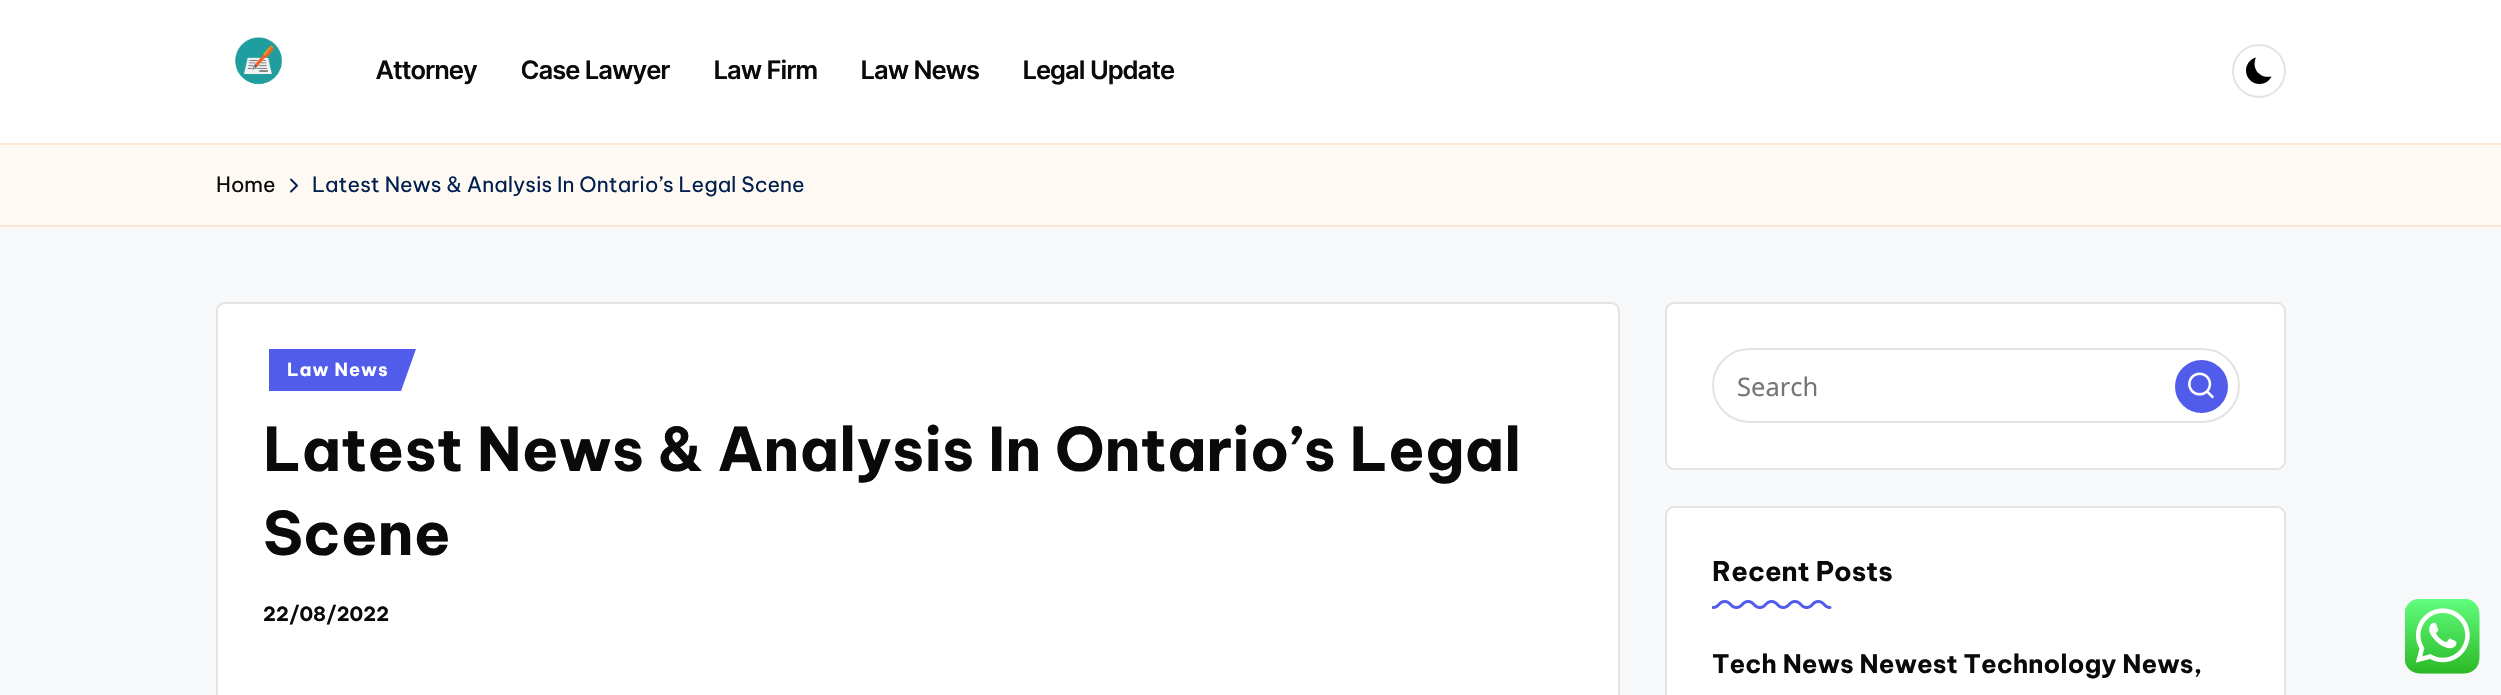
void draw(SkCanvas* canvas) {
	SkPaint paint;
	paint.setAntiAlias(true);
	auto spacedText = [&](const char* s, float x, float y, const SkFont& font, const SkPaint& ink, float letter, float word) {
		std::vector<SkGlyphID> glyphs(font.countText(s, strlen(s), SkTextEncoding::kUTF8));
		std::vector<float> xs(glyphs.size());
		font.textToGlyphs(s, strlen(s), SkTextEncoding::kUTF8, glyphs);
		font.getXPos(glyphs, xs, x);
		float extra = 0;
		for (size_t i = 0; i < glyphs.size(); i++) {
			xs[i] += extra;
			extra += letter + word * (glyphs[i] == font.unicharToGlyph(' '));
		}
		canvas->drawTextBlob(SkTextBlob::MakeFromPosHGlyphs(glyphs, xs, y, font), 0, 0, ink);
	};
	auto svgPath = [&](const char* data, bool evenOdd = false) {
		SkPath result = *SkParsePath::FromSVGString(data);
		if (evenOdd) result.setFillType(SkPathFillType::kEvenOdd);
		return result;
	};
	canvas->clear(0xfff7f8f9);
	paint.setColor(0xffffffff);
	canvas->drawRect(SkRect::MakeXYWH(0, 0, 2501, 143), paint);
	canvas->drawImageRect(SkImages::DeferredFromEncodedData(SkData::MakeFromFileName("img1.png")), SkRect::MakeXYWH(235, 37, 48, 48), SkSamplingOptions());
	SkFont f1(fontMgr->matchFamilyStyle("Inter Tight", SkFontStyle(600, SkFontStyle::kNormal_Width, SkFontStyle::kUpright_Slant)), 25.5);
	f1.setSubpixel(true);
	paint.setColor(0xff0a0a0a);
	canvas->drawString("Attorney", 376, 79, f1, paint);
	canvas->drawString("Case Lawyer", 521, 79, f1, paint);
	canvas->drawString("Law Firm", 714, 79, f1, paint);
	canvas->drawString("Law News", 861, 79, f1, paint);
	canvas->drawString("Legal Update", 1023, 79, f1, paint);
	paint.setStroke(true);
	paint.setStrokeWidth(2);
	paint.setColor(0xffe3e3e3);
	canvas->drawCircle(2259, 71, 26, paint);
	paint.setStroke(false);
	paint.setColor(0xff000000);
	canvas->drawPath(svgPath("M2271.5 76.5C2260 79 2251 68.5 2256 57.5C2250 59 2246 64.5 2246 70.5C2246 78 2252 84 2259.5 84C2265 84 2269.5 81 2271.5 76.5Z"), paint);
	paint.setColor(0xfffff9f3);
	canvas->drawRect(SkRect::MakeXYWH(0, 145, 2501, 80), paint);
	paint.setColor(0xffffe7d2);
	canvas->drawRect(SkRect::MakeXYWH(0, 143, 2501, 2), paint);
	canvas->drawRect(SkRect::MakeXYWH(0, 225, 2501, 2), paint);
	SkFont f2(fontMgr->matchFamilyStyle("Be Vietnam Pro", SkFontStyle::Normal()), 21);
	f2.setSubpixel(true);
	paint.setColor(0xff0a0a0a);
	canvas->drawString("Home", 216, 192, f2, paint);
	canvas->drawImageRect(SkImages::DeferredFromEncodedData(SkData::MakeFromFileName("img2.png")), SkRect::MakeXYWH(290, 178, 8, 15), SkSamplingOptions());
	paint.setColor(0xff002050);
	canvas->drawString("Latest News & Analysis In Ontario’s Legal Scene", 312, 192, f2, paint);
	paint.setColor(0xffffffff);
	canvas->drawRoundRect(SkRect::MakeXYWH(216, 302, 1404, 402), 9, 9, paint);
	paint.setStroke(true);
	paint.setColor(0x66b9b9b9);
	canvas->drawRoundRect(SkRect::MakeXYWH(217, 303, 1402, 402), 8, 8, paint);
	paint.setStroke(false);
	paint.setColor(0xff525ceb);
	canvas->drawPath(svgPath("M269 391V349H416L401 391Z"), paint);
	SkFont f3(fontMgr->matchFamilyStyle("Be Vietnam Pro", SkFontStyle::Bold()), 18);
	f3.setSubpixel(true);
	paint.setColor(0xffffffff);
	spacedText("Law News", 287, 376, f3, paint, 1, 0);
	SkFont f4(fontMgr->matchFamilyStyle("Be Vietnam Pro", SkFontStyle::Bold()), 60);
	f4.setSubpixel(true);
	paint.setColor(0xff0a0a0a);
	canvas->drawString("Latest News & Analysis In Ontario’s Legal", 263, 471, f4, paint);
	canvas->drawString("Scene", 263, 555, f4, paint);
	SkFont f5(fontMgr->matchFamilyStyle("Be Vietnam Pro", SkFontStyle::Bold()), 19.5);
	f5.setSubpixel(true);
	canvas->drawString("22/08/2022", 263, 621, f5, paint);
	paint.setColor(0xffffffff);
	canvas->drawRoundRect(SkRect::MakeXYWH(1665, 302, 621, 168), 9, 9, paint);
	paint.setStroke(true);
	paint.setColor(0x66b9b9b9);
	canvas->drawRoundRect(SkRect::MakeXYWH(1666, 303, 619, 166), 8, 8, paint);
	paint.setColor(0xffe3e3e3);
	canvas->drawRoundRect(SkRect::MakeXYWH(1713, 349, 526, 73), 36.5, 36.5, paint);
	SkFont f6(fontMgr->matchFamilyStyle("Noto Sans", SkFontStyle::Normal()), 25.5);
	f6.setSubpixel(true);
	paint.setStroke(false);
	paint.setColor(0xff757575);
	canvas->drawString("Search", 1737, 396, f6, paint);
	paint.setColor(0xff525ceb);
	canvas->drawCircle(2201.5, 386.5, 26.5, paint);
	canvas->drawImageRect(SkImages::DeferredFromEncodedData(SkData::MakeFromFileName("img3.png")), SkRect::MakeXYWH(2188, 372, 26, 27), SkSamplingOptions());
	paint.setColor(0xffffffff);
	canvas->drawRoundRect(SkRect::MakeXYWH(1665, 506, 621, 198), 9, 9, paint);
	paint.setStroke(true);
	paint.setColor(0x66b9b9b9);
	canvas->drawRoundRect(SkRect::MakeXYWH(1666, 507, 619, 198), 8, 8, paint);
	SkFont f7(fontMgr->matchFamilyStyle("Be Vietnam Pro", SkFontStyle::Bold()), 27);
	f7.setSubpixel(true);
	paint.setStroke(false);
	paint.setColor(0xff0a0a0a);
	canvas->drawString("Recent Posts", 1712, 581, f7, paint);
	canvas->drawImageRect(SkImages::DeferredFromEncodedData(SkData::MakeFromFileName("img4.png")), SkRect::MakeXYWH(1712, 600, 120, 9), SkSamplingOptions());
	SkFont f8(fontMgr->matchFamilyStyle("Be Vietnam Pro", SkFontStyle::Bold()), 25.5);
	f8.setSubpixel(true);
	canvas->drawString("Tech News Newest Technology News,", 1712, 673, f8, paint);
	canvas->drawImageRect(SkImages::DeferredFromEncodedData(SkData::MakeFromFileName("img5.png")), SkRect::MakeXYWH(2405, 599, 75, 75), SkSamplingOptions());
}
